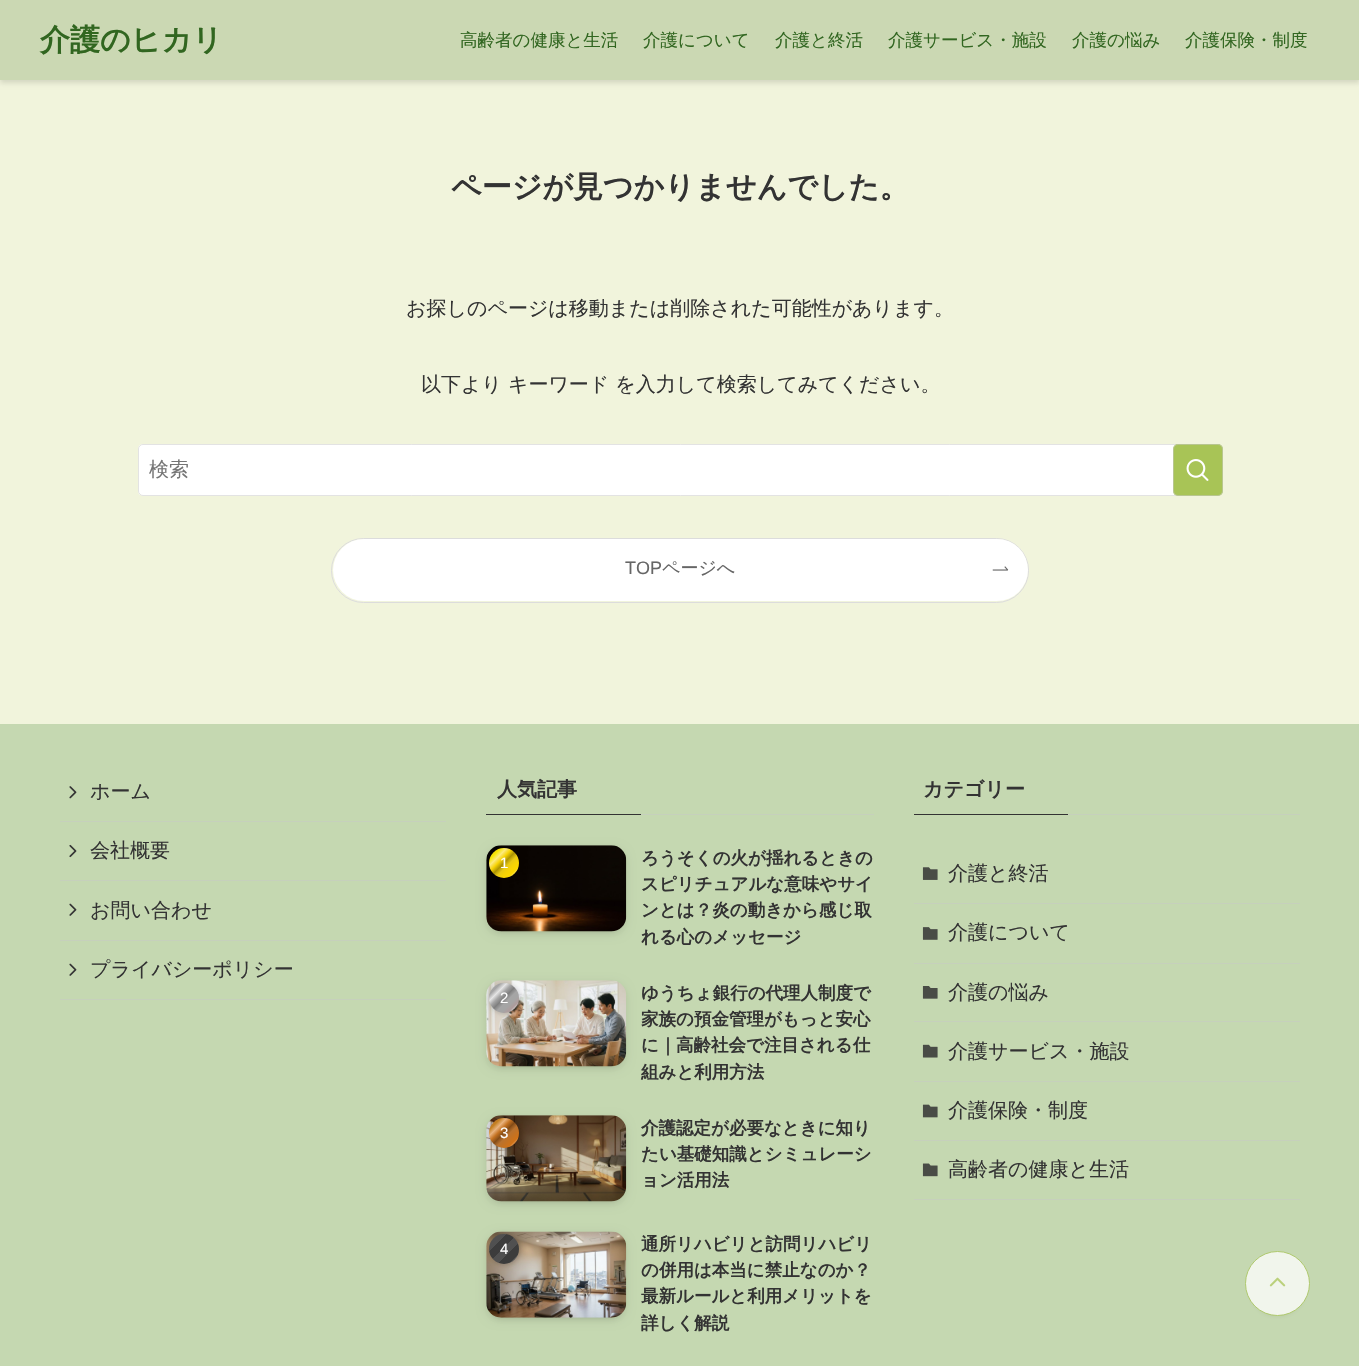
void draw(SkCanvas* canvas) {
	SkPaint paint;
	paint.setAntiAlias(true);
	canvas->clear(0xfff1f4dc);
	paint.setColor(0x1f000000);
	paint.setMaskFilter(SkMaskFilter::MakeBlur(kNormal_SkBlurStyle, 2.5));
	canvas->drawRect(SkRect::MakeXYWH(0, 3, 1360, 80), paint);
	paint.setMaskFilter(nullptr);
	paint.setColor(0xffcbd8b3);
	canvas->drawRect(SkRect::MakeXYWH(0, 0, 1359, 80), paint);
	SkFont f1(fontMgr->matchFamilyStyle("WenQuanYi Zen Hei", SkFontStyle::Bold()), 30);
	f1.setSubpixel(true);
	paint.setColor(0xff316620);
	canvas->drawString("介護のヒカリ", 40, 50, f1, paint);
	SkFont f2(fontMgr->matchFamilyStyle("WenQuanYi Zen Hei", SkFontStyle(500, SkFontStyle::kNormal_Width, SkFontStyle::kUpright_Slant)), 17.5);
	f2.setSubpixel(true);
	canvas->drawString("高齢者の健康と生活", 460, 46, f2, paint);
	canvas->drawString("介護について", 643, 46, f2, paint);
	canvas->drawString("介護と終活", 775, 46, f2, paint);
	canvas->drawString("介護サービス・施設", 888, 46, f2, paint);
	canvas->drawString("介護の悩み", 1072, 46, f2, paint);
	canvas->drawString("介護保険・制度", 1185, 46, f2, paint);
	paint.setColor(0xff333333);
	canvas->drawString("ページが見つかりませんでした。", 451, 197, f1, paint);
	SkFont f3(fontMgr->matchFamilyStyle("WenQuanYi Zen Hei", SkFontStyle(500, SkFontStyle::kNormal_Width, SkFontStyle::kUpright_Slant)), 20);
	f3.setSubpixel(true);
	canvas->drawString("お探しのページは移動または削除された可能性があります。", 406, 315, f3, paint);
	canvas->drawString("以下より キーワード を入力して検索してみてください。", 421, 391, f3, paint);
	paint.setColor(0xffffffff);
	canvas->drawRoundRect(SkRect::MakeXYWH(138, 444, 1085, 52), 5, 5, paint);
	paint.setStroke(true);
	paint.setStrokeWidth(1);
	paint.setColor(0x80c7c7c7);
	canvas->drawRoundRect(SkRect::MakeXYWH(138.5, 444.5, 1084, 51), 4.5, 4.5, paint);
	paint.setStroke(false);
	paint.setColor(0xff757575);
	canvas->drawString("検索", 149, 476, f3, paint);
	paint.setColor(0xffa8c456);
	canvas->drawRoundRect(SkRect::MakeXYWH(1173, 444, 50, 52), 5, 5, paint);
	paint.setStroke(true);
	paint.setColor(0x80c7c7c7);
	canvas->drawRoundRect(SkRect::MakeXYWH(1173.5, 444.5, 49, 51), 4.5, 4.5, paint);
	canvas->drawImageRect(SkImages::DeferredFromEncodedData(SkData::MakeFromFileName("img1.png")), SkRect::MakeXYWH(1186, 459, 23, 22), SkSamplingOptions());
	paint.setColor(0xffdcdcdc);
	canvas->drawRoundRect(SkRect::MakeXYWH(331.5, 538.5, 697, 64), 32, 32, paint);
	paint.setStroke(false);
	paint.setColor(0xffffffff);
	canvas->drawRoundRect(SkRect::MakeXYWH(333, 539, 695, 62), 31, 31, paint);
	SkFont f4(fontMgr->matchFamilyStyle("Liberation Sans", SkFontStyle::Normal()), 18);
	f4.setSubpixel(true);
	paint.setColor(0xff666666);
	canvas->drawString("TOP", 625, 574, f4, paint);
	SkFont f5(fontMgr->matchFamilyStyle("WenQuanYi Zen Hei", SkFontStyle(500, SkFontStyle::kNormal_Width, SkFontStyle::kUpright_Slant)), 18);
	f5.setSubpixel(true);
	canvas->drawString("ページへ", 662, 574, f5, paint);
	canvas->drawImageRect(SkImages::DeferredFromEncodedData(SkData::MakeFromFileName("img2.png")), SkRect::MakeXYWH(992, 566, 17, 5), SkSamplingOptions());
	paint.setColor(0xffc5d8b1);
	canvas->drawRect(SkRect::MakeXYWH(0, 724, 1359, 642), paint);
	paint.setColor(0xffc6d0bc);
	canvas->drawRect(SkRect::MakeXYWH(60, 821, 386, 1), paint);
	canvas->drawImageRect(SkImages::DeferredFromEncodedData(SkData::MakeFromFileName("img3.png")), SkRect::MakeXYWH(69, 786, 8, 13), SkSamplingOptions());
	paint.setColor(0xff333333);
	canvas->drawString("ホーム", 90, 798, f3, paint);
	paint.setColor(0xffc6d0bc);
	canvas->drawRect(SkRect::MakeXYWH(60, 880, 386, 1), paint);
	canvas->drawImageRect(SkImages::DeferredFromEncodedData(SkData::MakeFromFileName("img4.png")), SkRect::MakeXYWH(69, 844, 8, 14), SkSamplingOptions());
	paint.setColor(0xff333333);
	canvas->drawString("会社概要", 90, 857, f3, paint);
	paint.setColor(0xffc6d0bc);
	canvas->drawRect(SkRect::MakeXYWH(60, 940, 386, 1), paint);
	canvas->drawImageRect(SkImages::DeferredFromEncodedData(SkData::MakeFromFileName("img5.png")), SkRect::MakeXYWH(69, 903, 8, 13), SkSamplingOptions());
	paint.setColor(0xff333333);
	canvas->drawString("お問い合わせ", 90, 917, f3, paint);
	paint.setColor(0xffc6d0bc);
	canvas->drawRect(SkRect::MakeXYWH(60, 999, 386, 1), paint);
	canvas->drawImageRect(SkImages::DeferredFromEncodedData(SkData::MakeFromFileName("img5.png")), SkRect::MakeXYWH(69, 963, 8, 13), SkSamplingOptions());
	paint.setColor(0xff333333);
	canvas->drawString("プライバシーポリシー", 90, 976, f3, paint);
	SkFont f6(fontMgr->matchFamilyStyle("WenQuanYi Zen Hei", SkFontStyle::Bold()), 20);
	f6.setSubpixel(true);
	canvas->drawString("人気記事", 497, 796, f6, paint);
	canvas->drawRect(SkRect::MakeXYWH(486, 814, 155, 1), paint);
	paint.setColor(0xffc6d0bc);
	canvas->drawRect(SkRect::MakeXYWH(641, 814, 233, 1), paint);
	paint.setColor(0x1a000000);
	paint.setMaskFilter(SkMaskFilter::MakeBlur(kNormal_SkBlurStyle, 2.5));
	canvas->drawRoundRect(SkRect::MakeXYWH(491, 855, 130, 76), 10, 10, paint);
	paint.setMaskFilter(nullptr);
	paint.setMaskFilter(SkMaskFilter::MakeBlur(kNormal_SkBlurStyle, 5));
	canvas->drawRoundRect(SkRect::MakeXYWH(486, 848, 140, 86), 15, 15, paint);
	paint.setMaskFilter(nullptr);
	canvas->drawImageRect(SkImages::DeferredFromEncodedData(SkData::MakeFromFileName("img6.png")), SkRect::MakeXYWH(486, 845, 141, 87), SkSamplingOptions());
	{
		const SkColor colors[] = {0xfff7bf05, 0xfffcea7f, 0xfffcd700, 0xfff7d305, 0xffeaca12, 0xffac9303, 0xfff7d305, 0xfffcea7f, 0xfff7e705, 0xffeaca12, 0xfff7bf05};
		const float stops[] = {0, 0.1, 0.2, 0.3, 0.4, 0.5, 0.6, 0.7, 0.8, 0.9, 1};
		const SkPoint ends[] = {{519, 878}, {489, 848}};
		paint.setShader(SkGradientShader::MakeLinear(ends, colors, stops, 11, SkTileMode::kClamp));
		paint.setAlpha(255);
	}
	canvas->drawCircle(504, 863, 15, paint);
	SkFont f7(fontMgr->matchFamilyStyle("Liberation Sans", SkFontStyle::Normal()), 15);
	f7.setSubpixel(true);
	paint.setShader(nullptr);
	paint.setColor(0xffffffff);
	canvas->drawString("1", 500, 868, f7, paint);
	SkFont f8(fontMgr->matchFamilyStyle("WenQuanYi Zen Hei", SkFontStyle::Bold()), 17.5);
	f8.setSubpixel(true);
	paint.setColor(0xff333333);
	canvas->drawString("ろうそくの火が揺れるときの", 641, 864, f8, paint);
	canvas->drawString("スピリチュアルな意味やサイ", 641, 890, f8, paint);
	canvas->drawString("ンとは？炎の動きから感じ取", 641, 916, f8, paint);
	canvas->drawString("れる心のメッセージ", 641, 943, f8, paint);
	paint.setColor(0x1a000000);
	paint.setMaskFilter(SkMaskFilter::MakeBlur(kNormal_SkBlurStyle, 2.5));
	canvas->drawRoundRect(SkRect::MakeXYWH(491, 990, 130, 76), 10, 10, paint);
	paint.setMaskFilter(nullptr);
	paint.setMaskFilter(SkMaskFilter::MakeBlur(kNormal_SkBlurStyle, 5));
	canvas->drawRoundRect(SkRect::MakeXYWH(486, 983, 140, 86), 15, 15, paint);
	paint.setMaskFilter(nullptr);
	canvas->drawImageRect(SkImages::DeferredFromEncodedData(SkData::MakeFromFileName("img7.png")), SkRect::MakeXYWH(486, 980, 141, 87), SkSamplingOptions());
	paint.setColor(0x33000000);
	paint.setMaskFilter(SkMaskFilter::MakeBlur(kNormal_SkBlurStyle, 2.5));
	canvas->drawRoundRect(SkRect::MakeXYWH(490, 984, 30, 30), 15, 15, paint);
	paint.setMaskFilter(nullptr);
	{
		const SkColor colors[] = {0xffa5a5a5, 0xffe5e5e5, 0xffae9c9c, 0xffa5a5a5, 0xffa5a5a5, 0xff7f7f7f, 0xffa5a5a5, 0xffe5e5e5, 0xffa5a5a5, 0xffa5a5a5};
		const float stops[] = {0, 0.1, 0.2, 0.3, 0.4, 0.5, 0.6, 0.7, 0.8, 1};
		const SkPoint ends[] = {{519, 1013}, {489, 983}};
		paint.setShader(SkGradientShader::MakeLinear(ends, colors, stops, 10, SkTileMode::kClamp));
		paint.setAlpha(255);
	}
	canvas->drawCircle(504, 998, 15, paint);
	paint.setShader(nullptr);
	paint.setColor(0xffffffff);
	canvas->drawString("2", 500, 1003, f7, paint);
	paint.setColor(0xff333333);
	canvas->drawString("ゆうちょ銀行の代理人制度で", 641, 999, f8, paint);
	canvas->drawString("家族の預金管理がもっと安心", 641, 1025, f8, paint);
	canvas->drawString("に｜高齢社会で注目される仕", 641, 1051, f8, paint);
	canvas->drawString("組みと利用方法", 641, 1078, f8, paint);
	paint.setColor(0x1a000000);
	paint.setMaskFilter(SkMaskFilter::MakeBlur(kNormal_SkBlurStyle, 2.5));
	canvas->drawRoundRect(SkRect::MakeXYWH(491, 1125, 130, 76), 10, 10, paint);
	paint.setMaskFilter(nullptr);
	paint.setMaskFilter(SkMaskFilter::MakeBlur(kNormal_SkBlurStyle, 5));
	canvas->drawRoundRect(SkRect::MakeXYWH(486, 1118, 140, 86), 15, 15, paint);
	paint.setMaskFilter(nullptr);
	canvas->drawImageRect(SkImages::DeferredFromEncodedData(SkData::MakeFromFileName("img8.png")), SkRect::MakeXYWH(486, 1115, 141, 87), SkSamplingOptions());
	paint.setColor(0x33000000);
	paint.setMaskFilter(SkMaskFilter::MakeBlur(kNormal_SkBlurStyle, 2.5));
	canvas->drawRoundRect(SkRect::MakeXYWH(490, 1119, 30, 30), 15, 15, paint);
	paint.setMaskFilter(nullptr);
	{
		const SkColor colors[] = {0xffc46522, 0xffe8b27d, 0xffd07217, 0xffc47222, 0xffb9722e, 0xff834c17, 0xffc47222, 0xffe8b27d, 0xffc48022, 0xffb9722e, 0xffc46522};
		const float stops[] = {0, 0.1, 0.2, 0.3, 0.4, 0.5, 0.6, 0.7, 0.8, 0.9, 1};
		const SkPoint ends[] = {{519, 1148}, {489, 1118}};
		paint.setShader(SkGradientShader::MakeLinear(ends, colors, stops, 11, SkTileMode::kClamp));
		paint.setAlpha(255);
	}
	canvas->drawCircle(504, 1133, 15, paint);
	paint.setShader(nullptr);
	paint.setColor(0xffffffff);
	canvas->drawString("3", 500, 1138, f7, paint);
	paint.setColor(0xff333333);
	canvas->drawString("介護認定が必要なときに知り", 641, 1134, f8, paint);
	canvas->drawString("たい基礎知識とシミュレーシ", 641, 1160, f8, paint);
	canvas->drawString("ョン活用法", 641, 1186, f8, paint);
	paint.setColor(0x1a000000);
	paint.setMaskFilter(SkMaskFilter::MakeBlur(kNormal_SkBlurStyle, 2.5));
	canvas->drawRoundRect(SkRect::MakeXYWH(491, 1241, 130, 77), 10, 10, paint);
	paint.setMaskFilter(nullptr);
	paint.setMaskFilter(SkMaskFilter::MakeBlur(kNormal_SkBlurStyle, 5));
	canvas->drawRoundRect(SkRect::MakeXYWH(486, 1234, 140, 86), 15, 15, paint);
	paint.setMaskFilter(nullptr);
	canvas->drawImageRect(SkImages::DeferredFromEncodedData(SkData::MakeFromFileName("img9.png")), SkRect::MakeXYWH(486, 1231, 141, 87), SkSamplingOptions());
	paint.setColor(0x33000000);
	paint.setMaskFilter(SkMaskFilter::MakeBlur(kNormal_SkBlurStyle, 2.5));
	canvas->drawRoundRect(SkRect::MakeXYWH(490, 1235, 30, 30), 15, 15, paint);
	paint.setMaskFilter(nullptr);
	paint.setColor(0xff3c3c3c);
	canvas->drawCircle(504, 1249, 15, paint);
	{
		const SkColor colors[] = {0x1affffff, 0x1affffff, 0x00ffffff, 0x00ffffff, 0x1affffff, 0x1affffff, 0x00ffffff, 0x00ffffff, 0x1affffff, 0x1affffff, 0x00ffffff, 0x00000000};
		const float stops[] = {0, 0.17, 0.17, 0.33, 0.33, 0.5, 0.5, 0.67, 0.67, 0.83, 0.83, 1};
		const SkPoint ends[] = {{519, 1264}, {487, 1232}};
		paint.setShader(SkGradientShader::MakeLinear(ends, colors, stops, 12, SkTileMode::kClamp));
		paint.setAlpha(255);
	}
	canvas->drawCircle(504, 1249, 15, paint);
	paint.setShader(nullptr);
	paint.setColor(0xffffffff);
	canvas->drawString("4", 500, 1254, f7, paint);
	paint.setColor(0xff333333);
	canvas->drawString("通所リハビリと訪問リハビリ", 641, 1250, f8, paint);
	canvas->drawString("の併用は本当に禁止なのか？", 641, 1276, f8, paint);
	canvas->drawString("最新ルールと利用メリットを", 641, 1302, f8, paint);
	canvas->drawString("詳しく解説", 641, 1329, f8, paint);
	canvas->drawString("カテゴリー", 923, 796, f6, paint);
	canvas->drawRect(SkRect::MakeXYWH(914, 814, 154, 1), paint);
	paint.setColor(0xffc6d0bc);
	canvas->drawRect(SkRect::MakeXYWH(1068, 814, 232, 1), paint);
	canvas->drawRect(SkRect::MakeXYWH(914, 903, 386, 1), paint);
	canvas->drawImageRect(SkImages::DeferredFromEncodedData(SkData::MakeFromFileName("img10.png")), SkRect::MakeXYWH(922, 867, 16, 13), SkSamplingOptions());
	paint.setColor(0xff333333);
	canvas->drawString("介護と終活", 948, 880, f3, paint);
	paint.setColor(0xffc6d0bc);
	canvas->drawRect(SkRect::MakeXYWH(914, 963, 386, 1), paint);
	canvas->drawImageRect(SkImages::DeferredFromEncodedData(SkData::MakeFromFileName("img11.png")), SkRect::MakeXYWH(922, 927, 16, 13), SkSamplingOptions());
	paint.setColor(0xff333333);
	canvas->drawString("介護について", 948, 939, f3, paint);
	paint.setColor(0xffc6d0bc);
	canvas->drawRect(SkRect::MakeXYWH(914, 1021, 386, 1), paint);
	canvas->drawImageRect(SkImages::DeferredFromEncodedData(SkData::MakeFromFileName("img12.png")), SkRect::MakeXYWH(922, 986, 16, 13), SkSamplingOptions());
	paint.setColor(0xff333333);
	canvas->drawString("介護の悩み", 948, 999, f3, paint);
	paint.setColor(0xffc6d0bc);
	canvas->drawRect(SkRect::MakeXYWH(914, 1081, 386, 1), paint);
	canvas->drawImageRect(SkImages::DeferredFromEncodedData(SkData::MakeFromFileName("img13.png")), SkRect::MakeXYWH(922, 1044, 16, 14), SkSamplingOptions());
	paint.setColor(0xff333333);
	canvas->drawString("介護サービス・施設", 948, 1058, f3, paint);
	paint.setColor(0xffc6d0bc);
	canvas->drawRect(SkRect::MakeXYWH(914, 1140, 386, 1), paint);
	canvas->drawImageRect(SkImages::DeferredFromEncodedData(SkData::MakeFromFileName("img14.png")), SkRect::MakeXYWH(922, 1104, 16, 14), SkSamplingOptions());
	paint.setColor(0xff333333);
	canvas->drawString("介護保険・制度", 948, 1117, f3, paint);
	paint.setColor(0xffc6d0bc);
	canvas->drawRect(SkRect::MakeXYWH(914, 1199, 386, 1), paint);
	canvas->drawImageRect(SkImages::DeferredFromEncodedData(SkData::MakeFromFileName("img15.png")), SkRect::MakeXYWH(922, 1163, 16, 14), SkSamplingOptions());
	paint.setColor(0xff333333);
	canvas->drawString("高齢者の健康と生活", 948, 1176, f3, paint);
	paint.setColor(0x1a31362c);
	paint.setMaskFilter(SkMaskFilter::MakeBlur(kNormal_SkBlurStyle, 2.5));
	canvas->drawRoundRect(SkRect::MakeXYWH(1250, 1261, 55, 55), 27.5, 27.5, paint);
	paint.setMaskFilter(nullptr);
	paint.setColor(0xfff1f5ec);
	canvas->drawCircle(1277.5, 1283.5, 32, paint);
	paint.setStroke(true);
	paint.setColor(0xffafc96d);
	canvas->drawCircle(1277.5, 1283.5, 32, paint);
	canvas->drawImageRect(SkImages::DeferredFromEncodedData(SkData::MakeFromFileName("img16.png")), SkRect::MakeXYWH(1269, 1277, 17, 10), SkSamplingOptions());
}
